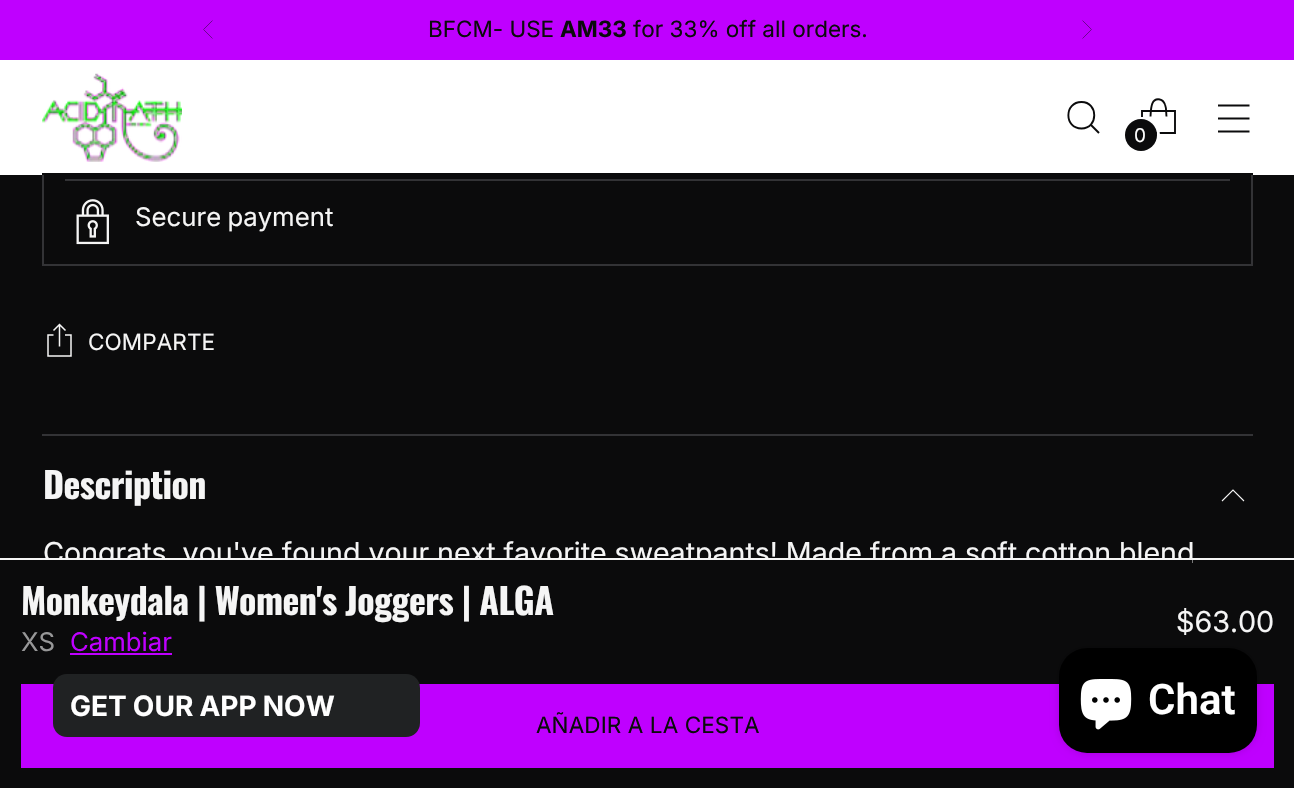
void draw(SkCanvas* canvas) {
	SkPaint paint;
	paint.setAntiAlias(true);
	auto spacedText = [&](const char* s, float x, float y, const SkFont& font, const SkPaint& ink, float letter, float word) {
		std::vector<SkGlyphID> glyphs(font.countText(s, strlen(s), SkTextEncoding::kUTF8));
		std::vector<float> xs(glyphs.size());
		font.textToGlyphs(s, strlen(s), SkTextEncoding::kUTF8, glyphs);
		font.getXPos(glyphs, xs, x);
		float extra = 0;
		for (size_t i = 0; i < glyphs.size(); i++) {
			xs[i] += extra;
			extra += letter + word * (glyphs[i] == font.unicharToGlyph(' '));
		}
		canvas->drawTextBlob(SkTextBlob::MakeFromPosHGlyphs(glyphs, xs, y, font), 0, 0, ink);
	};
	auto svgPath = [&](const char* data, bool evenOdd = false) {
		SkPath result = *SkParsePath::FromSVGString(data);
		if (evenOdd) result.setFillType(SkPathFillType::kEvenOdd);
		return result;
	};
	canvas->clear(0xff0b0b0c);
	paint.setStroke(true);
	paint.setStrokeWidth(2);
	paint.setColor(0xff333336);
	canvas->drawRect(SkRect::MakeXYWH(43, -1, 1209, 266), paint);
	paint.setStroke(false);
	paint.setColor(0xffbf00ff);
	canvas->drawRect(SkRect::MakeXYWH(0, 0, 1294, 60), paint);
	SkFont f1(fontMgr->matchFamilyStyle("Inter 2", SkFontStyle::Normal()), 22.5);
	f1.setSubpixel(true);
	paint.setColor(0xff0b0b0c);
	canvas->drawString("BFCM- USE", 428, 37, f1, paint);
	SkFont f2(fontMgr->matchFamilyStyle("Inter", SkFontStyle::Bold()), 22.5);
	f2.setSubpixel(true);
	canvas->drawString("AM33", 560, 37, f2, paint);
	canvas->drawString("for 33% off all orders.", 633, 37, f1, paint);
	paint.setStroke(true);
	paint.setStrokeWidth(0.9);
	paint.setColor(0xff650686);
	canvas->drawPath(svgPath("M212.5 20.5L203.5 29.5L212.5 38.5"), paint);
	canvas->drawPath(svgPath("M1082.5 38.5L1091.5 29.5L1082.5 20.5"), paint);
	paint.setStroke(false);
	paint.setColor(0xffffffff);
	canvas->drawRect(SkRect::MakeXYWH(0, 60, 1294, 115), paint);
	paint.setColor(0xff0b0b0c);
	canvas->drawRect(SkRect::MakeXYWH(42, 173, 1211, 2), paint);
	canvas->drawImageRect(SkImages::DeferredFromEncodedData(SkData::MakeFromFileName("img1.png")), SkRect::MakeXYWH(42, 73, 140, 89), SkSamplingOptions());
	paint.setStroke(true);
	paint.setStrokeWidth(1.9);
	paint.setStrokeCap(SkPaint::kRound_Cap);
	canvas->drawPath(svgPath("M1081.5 128.5C1098.5 128.5 1098.5 102 1081.5 102C1064 102 1064 128.5 1081.5 128.5Z"), paint);
	paint.setStrokeCap(SkPaint::kButt_Cap);
	canvas->drawPath(svgPath("M1091 125L1099 133"), paint);
	canvas->drawPath(svgPath("M1218 118.5H1249.5M1218 105.5H1249.5M1218 131.5H1249.5"), paint);
	paint.setStrokeJoin(SkPaint::kBevel_Join);
	canvas->drawPath(svgPath("M1166.5 116.5C1166 112.5 1166.5 108 1165 104.5C1164 102 1162.5 100 1160 99.5C1150.5 97.5 1151 110 1150.5 116.5"), paint);
	paint.setStrokeJoin(SkPaint::kMiter_Join);
	canvas->drawPath(svgPath("M1175 133V111H1142V133Z"), paint);
	paint.setStrokeWidth(3);
	paint.setColor(0xffffffff);
	canvas->drawRoundRect(SkRect::MakeXYWH(1125.5, 118.5, 33, 34), 16.5, 16.5, paint);
	paint.setStroke(false);
	paint.setColor(0xff0b0b0c);
	canvas->drawCircle(1141, 135, 16, paint);
	SkFont f3(fontMgr->matchFamilyStyle("Inter 2", SkFontStyle::Normal()), 19);
	f3.setSubpixel(true);
	paint.setColor(0xffffffff);
	canvas->drawString("0", 1134, 142, f3, paint);
	paint.setColor(0xff333336);
	canvas->drawRect(SkRect::MakeXYWH(65, 179, 1165, 2), paint);
	canvas->drawImageRect(SkImages::DeferredFromEncodedData(SkData::MakeFromFileName("img2.png")), SkRect::MakeXYWH(76, 199, 33, 46), SkSamplingOptions());
	SkFont f4(fontMgr->matchFamilyStyle("Inter 2", SkFontStyle::Normal()), 25.75);
	f4.setSubpixel(true);
	paint.setColor(0xfff5f5f5);
	spacedText("Secure payment", 135, 226, f4, paint, 0, -1);
	paint.setStroke(true);
	paint.setStrokeWidth(1.5);
	canvas->drawPath(svgPath("M53.5 335H48V356H71V335H65M59.5 346.5V325.5M65.5 330.5L59.5 324.5L53.5 330.5"), paint);
	paint.setStroke(false);
	spacedText("COMPARTE", 88, 350, f1, paint, 0.1, 0);
	SkFont f5(fontMgr->matchFamilyStyle("Inter", SkFontStyle::Normal()), 28.85);
	f5.setSubpixel(true);
	canvas->drawString("Congrats, you've found your next favorite sweatpants! Made from a soft cotton blend", 43, 563, f5, paint);
	paint.setColor(0xff0b0b0c);
	canvas->drawRect(SkRect::MakeXYWH(46, 560, 1146, 10), paint);
	paint.setColor(0xfff5f5f5);
	canvas->drawRect(SkRect::MakeXYWH(0, 558, 1294, 2), paint);
	SkFont f6(fontMgr->matchFamilyStyle("Oswald", SkFontStyle::Bold()), 35.9);
	f6.setSubpixel(true);
	spacedText("Monkeydala | Women's Joggers | ALGA", 21, 615, f6, paint, -0.55, 0);
	paint.setColor(0xff979798);
	canvas->drawString("XS", 21, 651, f4, paint);
	paint.setColor(0xffbf00ff);
	canvas->drawString("Cambiar", 70, 651, f4, paint);
	canvas->drawRect(SkRect::MakeXYWH(70, 653, 102, 2), paint);
	paint.setColor(0xfff5f5f5);
	canvas->drawString("$63.00", 1176, 632, f5, paint);
	canvas->save();
	canvas->clipRect(SkRect::MakeXYWH(21, 684, 1253, 84));
	paint.setColor(0xffbf00ff);
	canvas->drawPath(svgPath("M-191 684H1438L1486 768H-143Z"), paint);
	canvas->restore();
	paint.setColor(0xff0b0b0c);
	spacedText("AÑADIR A LA CESTA", 536, 733, f1, paint, 0.1, 0);
	paint.setColor(0xff333336);
	canvas->drawRect(SkRect::MakeXYWH(42, 434, 1211, 2), paint);
	paint.setColor(0xfff5f5f5);
	spacedText("Description", 43, 499, f6, paint, -0.55, 0);
	paint.setStroke(true);
	paint.setStrokeWidth(1.1);
	canvas->drawPath(svgPath("M1244 501L1233 490L1222 501"), paint);
	paint.setStroke(false);
	paint.setColor(0xff202223);
	canvas->drawRoundRect(SkRect::MakeXYWH(53, 674, 367, 63), 14, 14, paint);
	SkFont f7(fontMgr->matchFamilyStyle("Inter", SkFontStyle::Bold()), 28);
	f7.setSubpixel(true);
	paint.setColor(0xffffffff);
	spacedText("GET OUR APP NOW", 70, 716, f7, paint, 0, -0.5);
	paint.setColor(0x26000000);
	paint.setMaskFilter(SkMaskFilter::MakeBlur(kNormal_SkBlurStyle, 4.5));
	canvas->drawRoundRect(SkRect::MakeXYWH(1059, 648, 198, 105), 28, 28, paint);
	paint.setMaskFilter(nullptr);
	paint.setColor(0xff000000);
	canvas->drawRoundRect(SkRect::MakeXYWH(1059, 648, 198, 105), 28, 28, paint);
	canvas->drawImageRect(SkImages::DeferredFromEncodedData(SkData::MakeFromFileName("img3.png")), SkRect::MakeXYWH(1080, 679, 52, 51), SkSamplingOptions());
	SkFont f8(fontMgr->matchFamilyStyle("Roboto", SkFontStyle(600, SkFontStyle::kNormal_Width, SkFontStyle::kUpright_Slant)), 42);
	f8.setSubpixel(true);
	paint.setColor(0xffffffff);
	canvas->drawString("Chat", 1148, 714, f8, paint);
}
